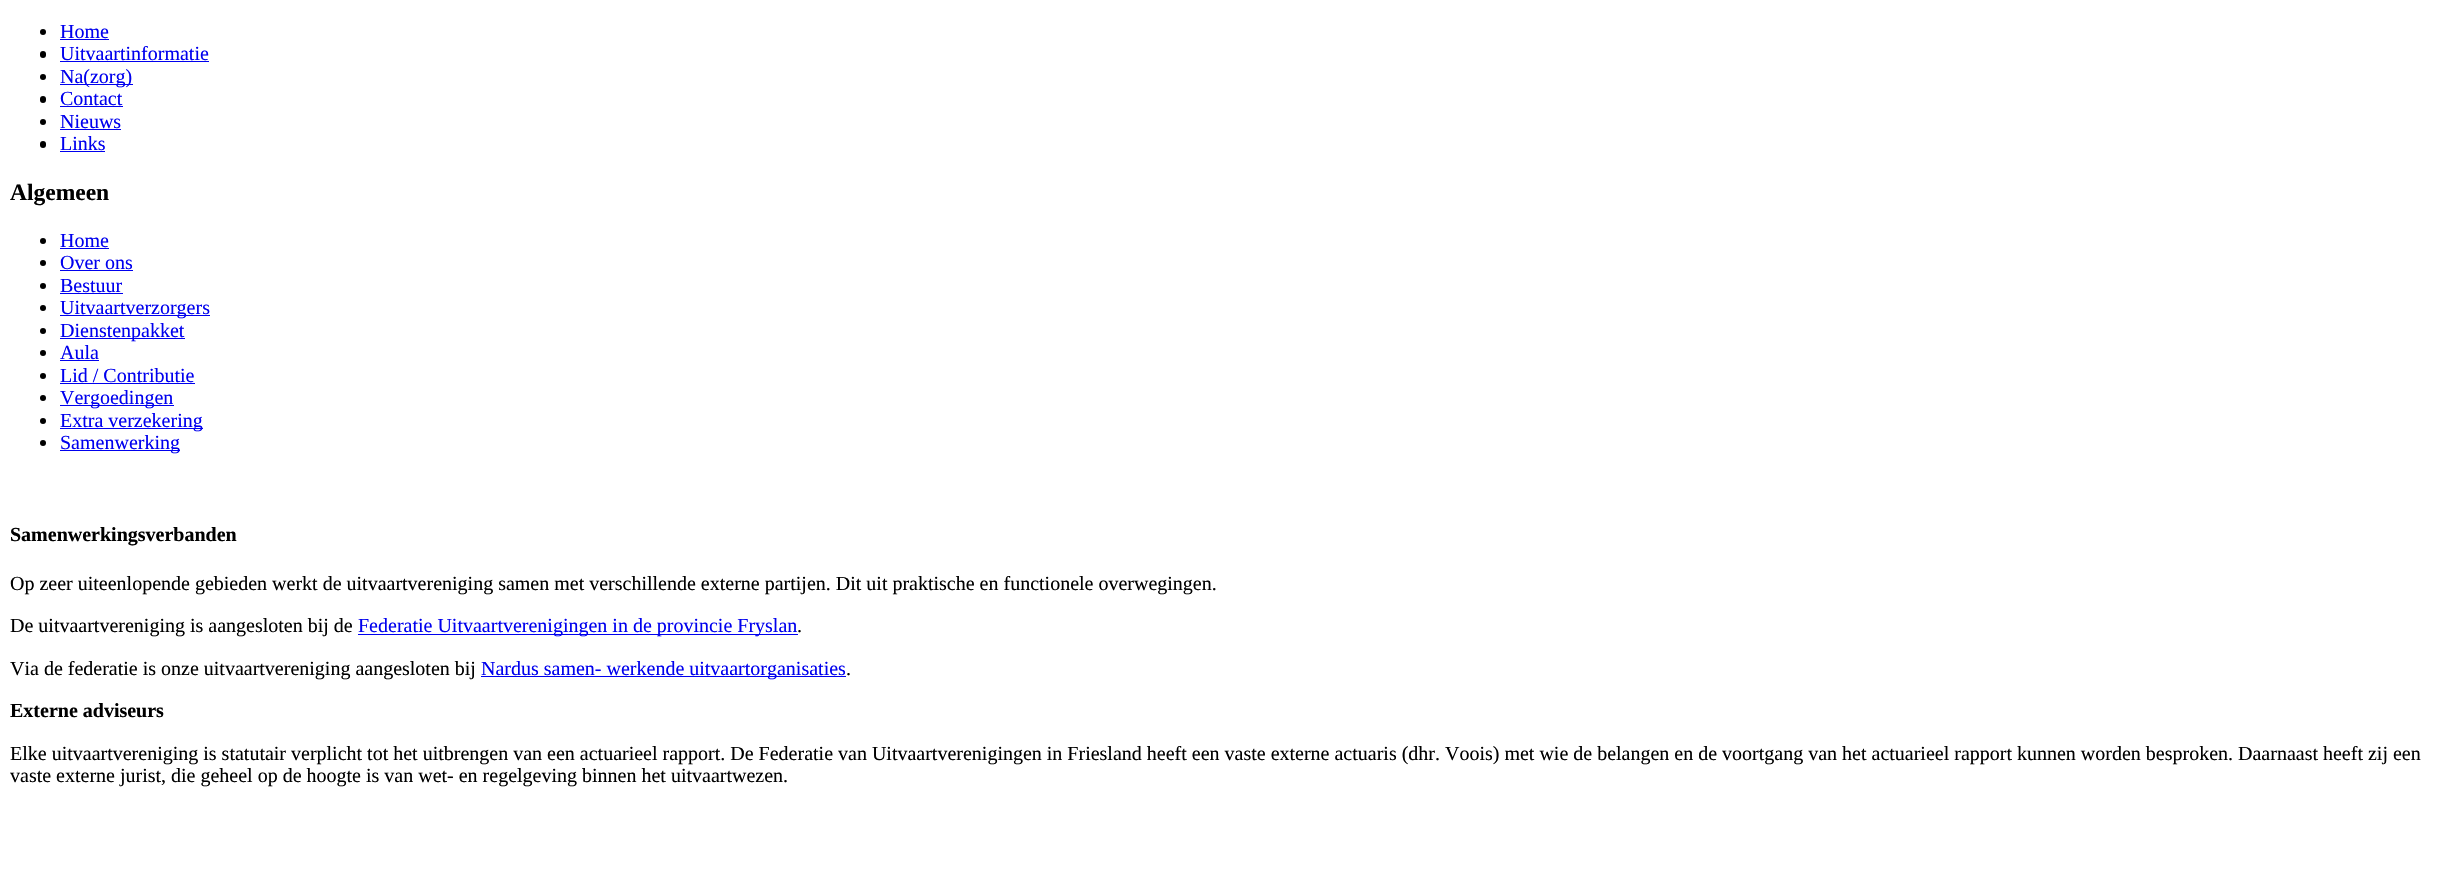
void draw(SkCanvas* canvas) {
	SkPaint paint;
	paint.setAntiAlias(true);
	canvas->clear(0xffffffff);
	paint.setColor(0xff000000);
	canvas->drawCircle(43, 32, 3, paint);
	SkFont f1(fontMgr->matchFamilyStyle("Liberation Serif", SkFontStyle::Normal()), 20);
	f1.setSubpixel(true);
	paint.setColor(0xff0000ee);
	canvas->drawString("Home", 60, 38, f1, paint);
	canvas->drawRect(SkRect::MakeXYWH(60, 39, 49, 1), paint);
	paint.setColor(0xff000000);
	canvas->drawRoundRect(SkRect::MakeXYWH(40, 51, 6, 7), 3, 3, paint);
	paint.setColor(0xff0000ee);
	canvas->drawString("Uitvaartinformatie", 60, 60, f1, paint);
	canvas->drawRect(SkRect::MakeXYWH(60, 61, 149, 1), paint);
	paint.setColor(0xff000000);
	canvas->drawCircle(43, 77, 3, paint);
	paint.setColor(0xff0000ee);
	canvas->drawRect(SkRect::MakeXYWH(60, 84, 73, 1), paint);
	canvas->drawString("Na(zorg)", 60, 83, f1, paint);
	paint.setColor(0xff000000);
	canvas->drawRoundRect(SkRect::MakeXYWH(40, 96, 6, 7), 3, 3, paint);
	paint.setColor(0xff0000ee);
	canvas->drawString("Contact", 60, 105, f1, paint);
	canvas->drawRect(SkRect::MakeXYWH(60, 106, 63, 1), paint);
	paint.setColor(0xff000000);
	canvas->drawCircle(43, 122, 3, paint);
	paint.setColor(0xff0000ee);
	canvas->drawString("Nieuws", 60, 128, f1, paint);
	canvas->drawRect(SkRect::MakeXYWH(60, 129, 61, 1), paint);
	paint.setColor(0xff000000);
	canvas->drawRoundRect(SkRect::MakeXYWH(40, 141, 6, 7), 3, 3, paint);
	paint.setColor(0xff0000ee);
	canvas->drawString("Links", 60, 150, f1, paint);
	canvas->drawRect(SkRect::MakeXYWH(60, 151, 45, 1), paint);
	SkFont f2(fontMgr->matchFamilyStyle("Liberation Serif", SkFontStyle::Bold()), 23.5);
	f2.setSubpixel(true);
	paint.setColor(0xff000000);
	canvas->drawString("Algemeen", 10, 200, f2, paint);
	canvas->drawCircle(43, 241, 3, paint);
	paint.setColor(0xff0000ee);
	canvas->drawString("Home", 60, 247, f1, paint);
	canvas->drawRect(SkRect::MakeXYWH(60, 248, 49, 1), paint);
	paint.setColor(0xff000000);
	canvas->drawCircle(43, 263, 3, paint);
	paint.setColor(0xff0000ee);
	canvas->drawString("Over ons", 60, 269, f1, paint);
	canvas->drawRect(SkRect::MakeXYWH(60, 270, 73, 1), paint);
	paint.setColor(0xff000000);
	canvas->drawCircle(43, 286, 3, paint);
	paint.setColor(0xff0000ee);
	canvas->drawString("Bestuur", 60, 292, f1, paint);
	canvas->drawRect(SkRect::MakeXYWH(60, 293, 63, 1), paint);
	paint.setColor(0xff000000);
	canvas->drawCircle(43, 308, 3, paint);
	paint.setColor(0xff0000ee);
	canvas->drawRect(SkRect::MakeXYWH(60, 315, 150, 1), paint);
	canvas->drawString("Uitvaartverzorgers", 60, 314, f1, paint);
	paint.setColor(0xff000000);
	canvas->drawCircle(43, 331, 3, paint);
	paint.setColor(0xff0000ee);
	canvas->drawRect(SkRect::MakeXYWH(60, 338, 125, 1), paint);
	canvas->drawString("Dienstenpakket", 60, 337, f1, paint);
	paint.setColor(0xff000000);
	canvas->drawCircle(43, 353, 3, paint);
	paint.setColor(0xff0000ee);
	canvas->drawString("Aula", 60, 359, f1, paint);
	canvas->drawRect(SkRect::MakeXYWH(60, 360, 39, 1), paint);
	paint.setColor(0xff000000);
	canvas->drawCircle(43, 376, 3, paint);
	paint.setColor(0xff0000ee);
	canvas->drawString("Lid / Contributie", 60, 382, f1, paint);
	canvas->drawRect(SkRect::MakeXYWH(60, 383, 135, 1), paint);
	paint.setColor(0xff000000);
	canvas->drawCircle(43, 398, 3, paint);
	paint.setColor(0xff0000ee);
	canvas->drawRect(SkRect::MakeXYWH(60, 405, 114, 1), paint);
	canvas->drawString("Vergoedingen", 60, 404, f1, paint);
	paint.setColor(0xff000000);
	canvas->drawCircle(43, 421, 3, paint);
	paint.setColor(0xff0000ee);
	canvas->drawRect(SkRect::MakeXYWH(60, 428, 143, 1), paint);
	canvas->drawString("Extra verzekering", 60, 427, f1, paint);
	paint.setColor(0xff000000);
	canvas->drawCircle(43, 443, 3, paint);
	paint.setColor(0xff0000ee);
	canvas->drawRect(SkRect::MakeXYWH(60, 450, 120, 1), paint);
	canvas->drawString("Samenwerking", 60, 449, f1, paint);
	SkFont f3(fontMgr->matchFamilyStyle("Liberation Serif", SkFontStyle::Bold()), 20);
	f3.setSubpixel(true);
	paint.setColor(0xff000000);
	canvas->drawString("Samenwerkingsverbanden", 10, 541, f3, paint);
	canvas->drawString("Op zeer uiteenlopende gebieden werkt de uitvaartvereniging samen met verschillende externe partijen. Dit uit praktische en functionele overwegingen.", 10, 590, f1, paint);
	canvas->drawString("De uitvaartvereniging is aangesloten bij de", 10, 632, f1, paint);
	paint.setColor(0xff0000ee);
	canvas->drawRect(SkRect::MakeXYWH(358, 634, 440, 1), paint);
	canvas->drawString("Federatie Uitvaartverenigingen in de provincie Fryslan", 358, 632, f1, paint);
	paint.setColor(0xff000000);
	canvas->drawString(".", 797, 632, f1, paint);
	canvas->drawString("Via de federatie is onze uitvaartvereniging aangesloten bij", 10, 675, f1, paint);
	paint.setColor(0xff0000ee);
	canvas->drawRect(SkRect::MakeXYWH(481, 676, 365, 1), paint);
	canvas->drawString("Nardus samen- werkende uitvaartorganisaties", 481, 675, f1, paint);
	paint.setColor(0xff000000);
	canvas->drawString(".", 846, 675, f1, paint);
	canvas->drawString("Externe adviseurs", 10, 717, f3, paint);
	canvas->drawString("Elke uitvaartvereniging is statutair verplicht tot het uitbrengen van een actuarieel rapport. De Federatie van Uitvaartverenigingen in Friesland heeft een vaste externe actuaris (dhr. Voois) met wie de belangen en de voortgang van het actuarieel rapport kunnen worden besproken. Daarnaast heeft zij een", 10, 760, f1, paint);
	canvas->drawString("vaste externe jurist, die geheel op de hoogte is van wet- en regelgeving binnen het uitvaartwezen.", 10, 782, f1, paint);
}
